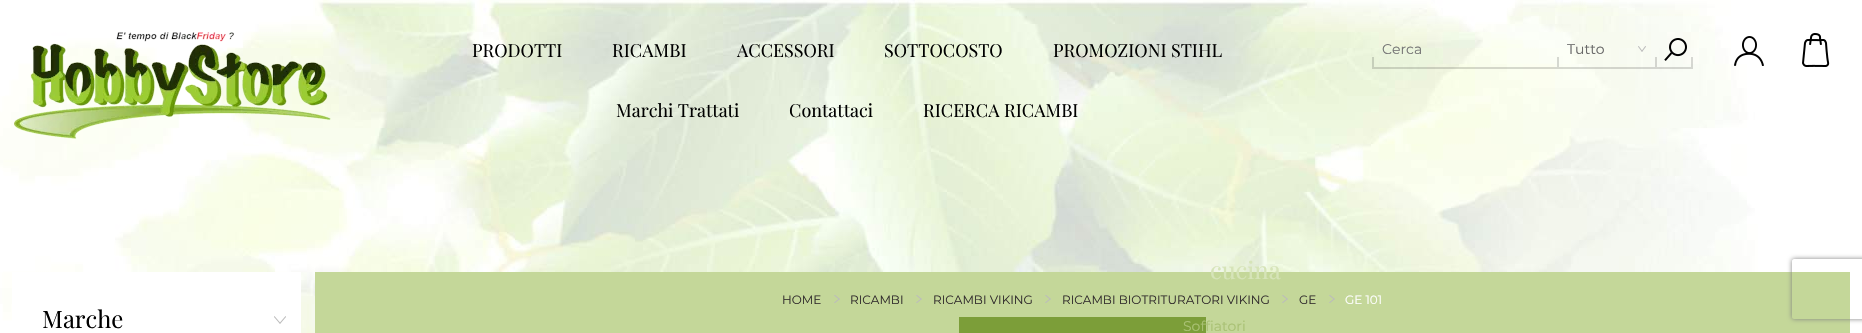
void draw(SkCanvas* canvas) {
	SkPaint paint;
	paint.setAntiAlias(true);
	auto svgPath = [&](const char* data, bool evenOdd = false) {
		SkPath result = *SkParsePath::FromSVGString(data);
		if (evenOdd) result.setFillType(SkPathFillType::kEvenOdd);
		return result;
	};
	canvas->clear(0xffffffff);
	canvas->drawImageRect(SkImages::DeferredFromEncodedData(SkData::MakeFromFileName("img1.png")), SkRect::MakeXYWH(0, 0, 1758, 333), SkSamplingOptions());
	canvas->drawImageRect(SkImages::DeferredFromEncodedData(SkData::MakeFromFileName("img2.png")), SkRect::MakeXYWH(14, 32, 317, 107), SkSamplingOptions());
	SkFont f1(fontMgr->matchFamilyStyle("Playfair Display", SkFontStyle::Normal()), 18);
	f1.setSubpixel(true);
	paint.setColor(0xff000000);
	canvas->drawString("PRODOTTI", 472, 57, f1, paint);
	paint.setColor(0xffc4d799);
	canvas->drawRect(SkRect::MakeXYWH(315, 272, 1535, 61), paint);
	SkFont f2(fontMgr->matchFamilyStyle("Playfair Display", SkFontStyle::Normal()), 24);
	f2.setSubpixel(true);
	paint.setColor(0xffd6e4b8);
	canvas->drawString("cucina", 1210, 279, f2, paint);
	paint.setColor(0xff000000);
	canvas->drawString("RICAMBI", 612, 57, f1, paint);
	paint.setColor(0xff7c9e39);
	canvas->drawRect(SkRect::MakeXYWH(959, 317, 247, 16), paint);
	SkFont f3(fontMgr->matchFamilyStyle("Montserrat", SkFontStyle(100, SkFontStyle::kNormal_Width, SkFontStyle::kUpright_Slant)), 14);
	f3.setSubpixel(true);
	paint.setColor(0xffa9c174);
	canvas->drawString("Soffiatori", 1183, 331, f3, paint);
	paint.setColor(0xff000000);
	canvas->drawString("ACCESSORI", 737, 57, f1, paint);
	canvas->drawString("SOTTOCOSTO", 884, 57, f1, paint);
	canvas->drawString("PROMOZIONI STIHL", 1053, 57, f1, paint);
	canvas->drawString("Marchi Trattati", 616, 117, f1, paint);
	canvas->drawString("Contattaci", 789, 117, f1, paint);
	canvas->drawString("RICERCA RICAMBI", 923, 117, f1, paint);
	paint.setColor(0x26000000);
	canvas->drawRect(SkRect::MakeXYWH(1372, 67, 321, 2), paint);
	paint.setColor(0xff757575);
	canvas->drawString("Cerca", 1382, 54, f3, paint);
	canvas->drawImageRect(SkImages::DeferredFromEncodedData(SkData::MakeFromFileName("img3.png")), SkRect::MakeXYWH(1638, 46, 8, 6), SkSamplingOptions());
	paint.setColor(0xff666666);
	canvas->drawString("Tutto", 1567, 54, f3, paint);
	paint.setColor(0xffd5d8d0);
	canvas->drawRect(SkRect::MakeXYWH(1557, 57, 2, 10), paint);
	paint.setColor(0xffd3d5cf);
	canvas->drawRect(SkRect::MakeXYWH(1655, 57, 2, 10), paint);
	canvas->drawImageRect(SkImages::DeferredFromEncodedData(SkData::MakeFromFileName("img4.png")), SkRect::MakeXYWH(1664, 38, 23, 23), SkSamplingOptions());
	paint.setColor(0xffc6cfba);
	canvas->drawRect(SkRect::MakeXYWH(1372, 57, 2, 10), paint);
	paint.setColor(0x26000000);
	canvas->drawRect(SkRect::MakeXYWH(1691, 57, 2, 10), paint);
	canvas->drawImageRect(SkImages::DeferredFromEncodedData(SkData::MakeFromFileName("img5.png")), SkRect::MakeXYWH(1734, 36, 30, 30), SkSamplingOptions());
	canvas->drawImageRect(SkImages::DeferredFromEncodedData(SkData::MakeFromFileName("img6.png")), SkRect::MakeXYWH(1802, 33, 28, 34), SkSamplingOptions());
	SkFont f4(fontMgr->matchFamilyStyle("Montserrat", SkFontStyle(100, SkFontStyle::kNormal_Width, SkFontStyle::kUpright_Slant)), 12);
	f4.setSubpixel(true);
	paint.setColor(0xff332e2e);
	canvas->drawString("HOME", 782, 304, f4, paint);
	canvas->drawImageRect(SkImages::DeferredFromEncodedData(SkData::MakeFromFileName("img7.png")), SkRect::MakeXYWH(834, 295, 6, 8), SkSamplingOptions());
	canvas->drawString("RICAMBI", 850, 304, f4, paint);
	canvas->drawImageRect(SkImages::DeferredFromEncodedData(SkData::MakeFromFileName("img7.png")), SkRect::MakeXYWH(916, 295, 6, 8), SkSamplingOptions());
	canvas->drawString("RICAMBI VIKING", 933, 304, f4, paint);
	canvas->drawImageRect(SkImages::DeferredFromEncodedData(SkData::MakeFromFileName("img7.png")), SkRect::MakeXYWH(1045, 295, 6, 8), SkSamplingOptions());
	canvas->drawString("RICAMBI BIOTRITURATORI VIKING", 1062, 304, f4, paint);
	canvas->drawImageRect(SkImages::DeferredFromEncodedData(SkData::MakeFromFileName("img7.png")), SkRect::MakeXYWH(1282, 295, 6, 8), SkSamplingOptions());
	canvas->drawString("GE", 1299, 304, f4, paint);
	canvas->drawImageRect(SkImages::DeferredFromEncodedData(SkData::MakeFromFileName("img7.png")), SkRect::MakeXYWH(1329, 295, 6, 8), SkSamplingOptions());
	paint.setColor(0xffffffff);
	canvas->drawString("GE 101", 1345, 304, f4, paint);
	canvas->drawRect(SkRect::MakeXYWH(12, 272, 289, 61), paint);
	canvas->drawImageRect(SkImages::DeferredFromEncodedData(SkData::MakeFromFileName("img8.png")), SkRect::MakeXYWH(274, 316, 12, 8), SkSamplingOptions());
	paint.setColor(0xff000000);
	canvas->drawString("Marche", 42, 328, f2, paint);
	canvas->save();
	canvas->clipPath(svgPath("M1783 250H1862V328H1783ZM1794 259H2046C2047 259 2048 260 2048 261V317C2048 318 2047 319 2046 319H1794C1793 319 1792 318 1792 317V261C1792 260 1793 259 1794 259Z", true), true);
	paint.setColor(0xff808080);
	paint.setMaskFilter(SkMaskFilter::MakeBlur(kNormal_SkBlurStyle, 2.5));
	canvas->drawRoundRect(SkRect::MakeXYWH(1792, 259, 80, 60), 2, 2, paint);
	paint.setMaskFilter(nullptr);
	canvas->restore();
}
